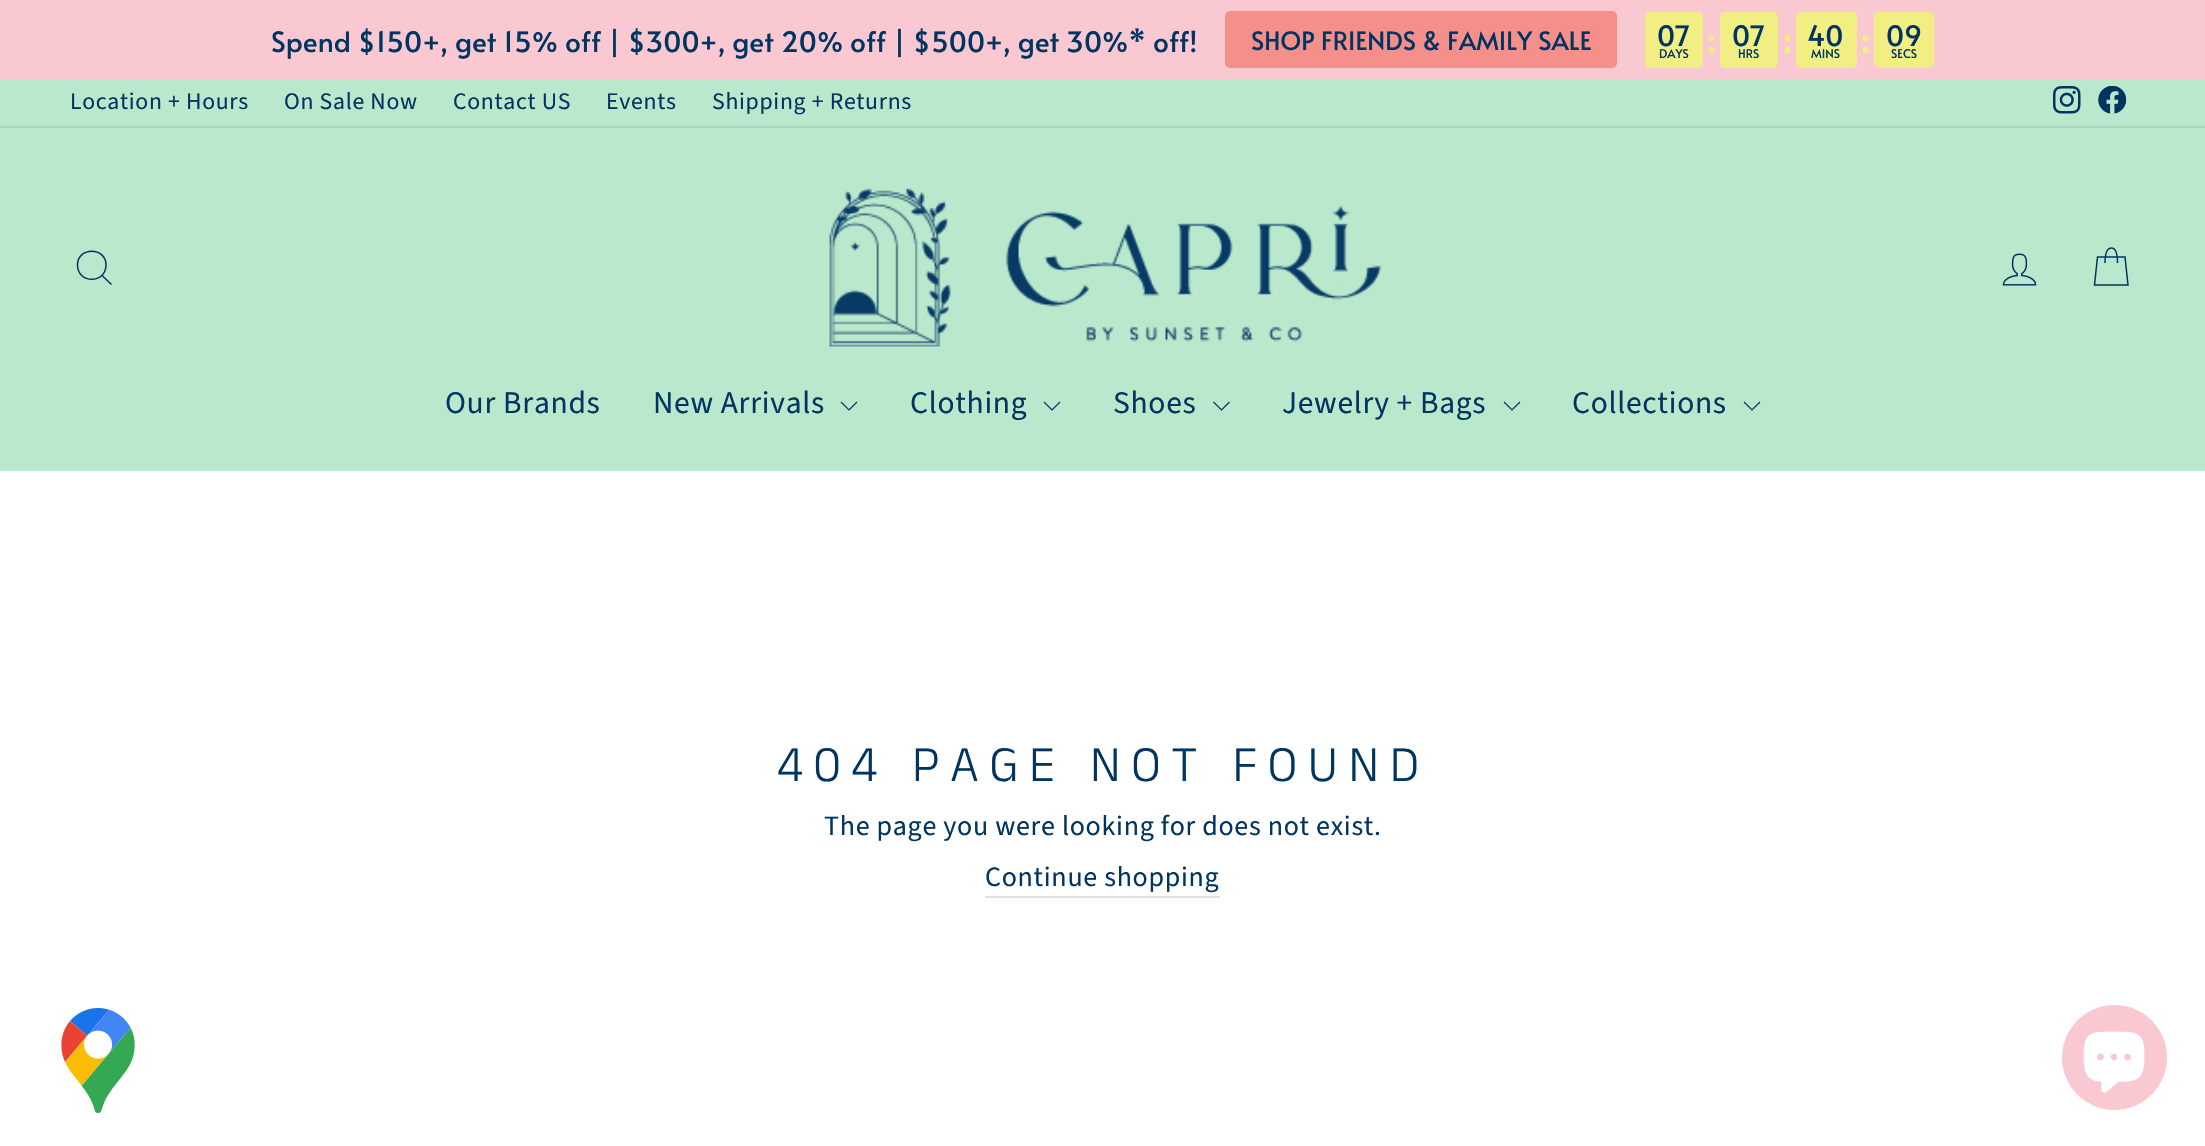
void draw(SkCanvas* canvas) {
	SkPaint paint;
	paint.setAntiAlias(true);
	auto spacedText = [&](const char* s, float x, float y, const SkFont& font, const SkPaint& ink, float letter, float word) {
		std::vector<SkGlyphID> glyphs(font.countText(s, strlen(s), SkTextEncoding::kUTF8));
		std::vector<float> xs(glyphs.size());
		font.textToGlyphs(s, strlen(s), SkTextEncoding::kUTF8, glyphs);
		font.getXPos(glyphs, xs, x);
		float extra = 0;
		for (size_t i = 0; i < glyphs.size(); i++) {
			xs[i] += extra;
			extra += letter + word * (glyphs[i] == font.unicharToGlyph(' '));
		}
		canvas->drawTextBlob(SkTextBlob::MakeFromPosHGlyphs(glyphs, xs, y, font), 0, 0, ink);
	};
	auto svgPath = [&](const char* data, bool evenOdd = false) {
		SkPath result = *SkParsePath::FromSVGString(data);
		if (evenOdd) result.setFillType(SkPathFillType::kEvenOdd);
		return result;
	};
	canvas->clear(0xffffffff);
	paint.setColor(0xfff9c8d1);
	canvas->drawRect(SkRect::MakeXYWH(0, 0, 2205, 79), paint);
	SkFont f1(fontMgr->matchFamilyStyle("Alata", SkFontStyle::Normal()), 28);
	f1.setSubpixel(true);
	paint.setColor(0xff003461);
	canvas->drawString("Spend $150+, get 15% off | $300+, get 20% off | $500+, get 30%* off!", 271, 52, f1, paint);
	paint.setColor(0xfff58f8a);
	canvas->drawRoundRect(SkRect::MakeXYWH(1225, 11, 392, 57), 5, 5, paint);
	SkFont f2(fontMgr->matchFamilyStyle("Alata", SkFontStyle::Normal()), 25.25);
	f2.setSubpixel(true);
	paint.setColor(0xff003461);
	canvas->drawString("SHOP FRIENDS & FAMILY SALE", 1251, 50, f2, paint);
	paint.setColor(0xfff1ee83);
	canvas->drawRoundRect(SkRect::MakeXYWH(1645, 12, 58, 56), 5, 5, paint);
	paint.setColor(0xff003461);
	canvas->drawString("07", 1657, 46, f1, paint);
	SkFont f3(fontMgr->matchFamilyStyle("Alata", SkFontStyle::Normal()), 12);
	f3.setSubpixel(true);
	canvas->drawString("DAYS", 1659, 58, f3, paint);
	SkFont f4(fontMgr->matchFamilyStyle("Alata", SkFontStyle::Bold()), 36);
	f4.setSubpixel(true);
	paint.setColor(0xfff1ee83);
	canvas->drawString(":", 1707, 53, f4, paint);
	canvas->drawRoundRect(SkRect::MakeXYWH(1720, 12, 58, 56), 5, 5, paint);
	paint.setColor(0xff003461);
	canvas->drawString("07", 1732, 46, f1, paint);
	canvas->drawString("HRS", 1738, 58, f3, paint);
	paint.setColor(0xfff1ee83);
	canvas->drawString(":", 1783, 53, f4, paint);
	canvas->drawRoundRect(SkRect::MakeXYWH(1796, 12, 61, 56), 5, 5, paint);
	paint.setColor(0xff003461);
	canvas->drawString("40", 1807, 46, f1, paint);
	canvas->drawString("MINS", 1811, 58, f3, paint);
	paint.setColor(0xfff1ee83);
	canvas->drawString(":", 1861, 53, f4, paint);
	canvas->drawRoundRect(SkRect::MakeXYWH(1874, 12, 60, 56), 5, 5, paint);
	paint.setColor(0xff003461);
	canvas->drawString("09", 1886, 46, f1, paint);
	canvas->drawString("SECS", 1891, 58, f3, paint);
	paint.setColor(0xffbae8cc);
	canvas->drawRect(SkRect::MakeXYWH(0, 79, 2205, 47), paint);
	SkFont f5(fontMgr->matchFamilyStyle("Source Sans Pro", SkFontStyle::Normal()), 23.75);
	f5.setSubpixel(true);
	paint.setColor(0xff003461);
	spacedText("Location + Hours", 70, 109, f5, paint, 0.7, 0);
	spacedText("On Sale Now", 284, 109, f5, paint, 0.7, 0);
	spacedText("Contact US", 453, 109, f5, paint, 0.7, 0);
	spacedText("Events", 606, 109, f5, paint, 0.7, 0);
	spacedText("Shipping + Returns", 712, 109, f5, paint, 0.7, 0);
	canvas->drawImageRect(SkImages::DeferredFromEncodedData(SkData::MakeFromFileName("img1.png")), SkRect::MakeXYWH(2053, 86, 28, 28), SkSamplingOptions());
	canvas->drawImageRect(SkImages::DeferredFromEncodedData(SkData::MakeFromFileName("img2.png")), SkRect::MakeXYWH(2098, 86, 28, 28), SkSamplingOptions());
	paint.setColor(0xffbae8cc);
	canvas->drawRect(SkRect::MakeXYWH(0, 128, 2205, 343), paint);
	paint.setColor(0xffa7d6c1);
	canvas->drawRect(SkRect::MakeXYWH(0, 126, 2205, 2), paint);
	paint.setStroke(true);
	paint.setStrokeWidth(1.5);
	paint.setColor(0xff003461);
	canvas->drawPath(svgPath("M106 265C106 284 77.5 284 77.5 265C77.5 246.5 106 246.5 106 265ZM111.5 284.5L102 275.5"), paint);
	canvas->drawImageRect(SkImages::DeferredFromEncodedData(SkData::MakeFromFileName("img3.png")), SkRect::MakeXYWH(829, 188, 553, 159), SkSamplingOptions());
	canvas->drawImageRect(SkImages::DeferredFromEncodedData(SkData::MakeFromFileName("img4.png")), SkRect::MakeXYWH(2002, 253, 35, 33), SkSamplingOptions());
	canvas->drawPath(svgPath("M2105 263C2105 251 2108 248 2111.5 248C2114.5 248 2117.5 251 2117.5 263M2097.5 257H2125L2128 285H2094.5Z"), paint);
	SkFont f6(fontMgr->matchFamilyStyle("Source Sans Pro", SkFontStyle::Normal()), 31.5);
	f6.setSubpixel(true);
	paint.setStroke(false);
	spacedText("Our Brands", 445, 413, f6, paint, 0.7, 0);
	spacedText("New Arrivals", 653, 413, f6, paint, 0.7, 0);
	paint.setStroke(true);
	paint.setStrokeWidth(1.2);
	canvas->drawPath(svgPath("M841 402L849 410L857 402"), paint);
	paint.setStroke(false);
	spacedText("Clothing", 910, 413, f6, paint, 0.7, 0);
	paint.setStroke(true);
	canvas->drawPath(svgPath("M1044 402L1052 410L1060 402"), paint);
	paint.setStroke(false);
	spacedText("Shoes", 1113, 413, f6, paint, 0.7, 0);
	paint.setStroke(true);
	canvas->drawPath(svgPath("M1213.5 402L1221.5 410L1229.5 402"), paint);
	paint.setStroke(false);
	spacedText("Jewelry + Bags", 1282, 413, f6, paint, 0.7, 0);
	paint.setStroke(true);
	canvas->drawPath(svgPath("M1504 402L1512 410L1520 402"), paint);
	paint.setStroke(false);
	spacedText("Collections", 1572, 413, f6, paint, 0.7, 0);
	paint.setStroke(true);
	canvas->drawPath(svgPath("M1744 402L1752 410L1760 402"), paint);
	SkFont f7(fontMgr->matchFamilyStyle("Anek Tamil", SkFontStyle(300, SkFontStyle::kNormal_Width, SkFontStyle::kUpright_Slant)), 50.75);
	f7.setSubpixel(true);
	paint.setStroke(false);
	spacedText("404 PAGE NOT FOUND", 777, 781, f7, paint, 10.2, 0);
	SkFont f8(fontMgr->matchFamilyStyle("Source Sans Pro", SkFontStyle::Normal()), 28);
	f8.setSubpixel(true);
	spacedText("The page you were looking for does not exist.", 824, 835, f8, paint, 0.7, 0);
	paint.setColor(0xffd9e1e7);
	canvas->drawRect(SkRect::MakeXYWH(985, 896, 235, 2), paint);
	paint.setColor(0xff003461);
	spacedText("Continue shopping", 985, 886, f8, paint, 0.7, 0);
	canvas->drawImageRect(SkImages::DeferredFromEncodedData(SkData::MakeFromFileName("img5.png")), SkRect::MakeXYWH(61, 1008, 74, 105), SkSamplingOptions());
	paint.setColor(0xfff9c8d1);
	canvas->drawCircle(2114.5, 1057.5, 52.5, paint);
	canvas->drawImageRect(SkImages::DeferredFromEncodedData(SkData::MakeFromFileName("img6.png")), SkRect::MakeXYWH(2083, 1031, 62, 62), SkSamplingOptions());
}
